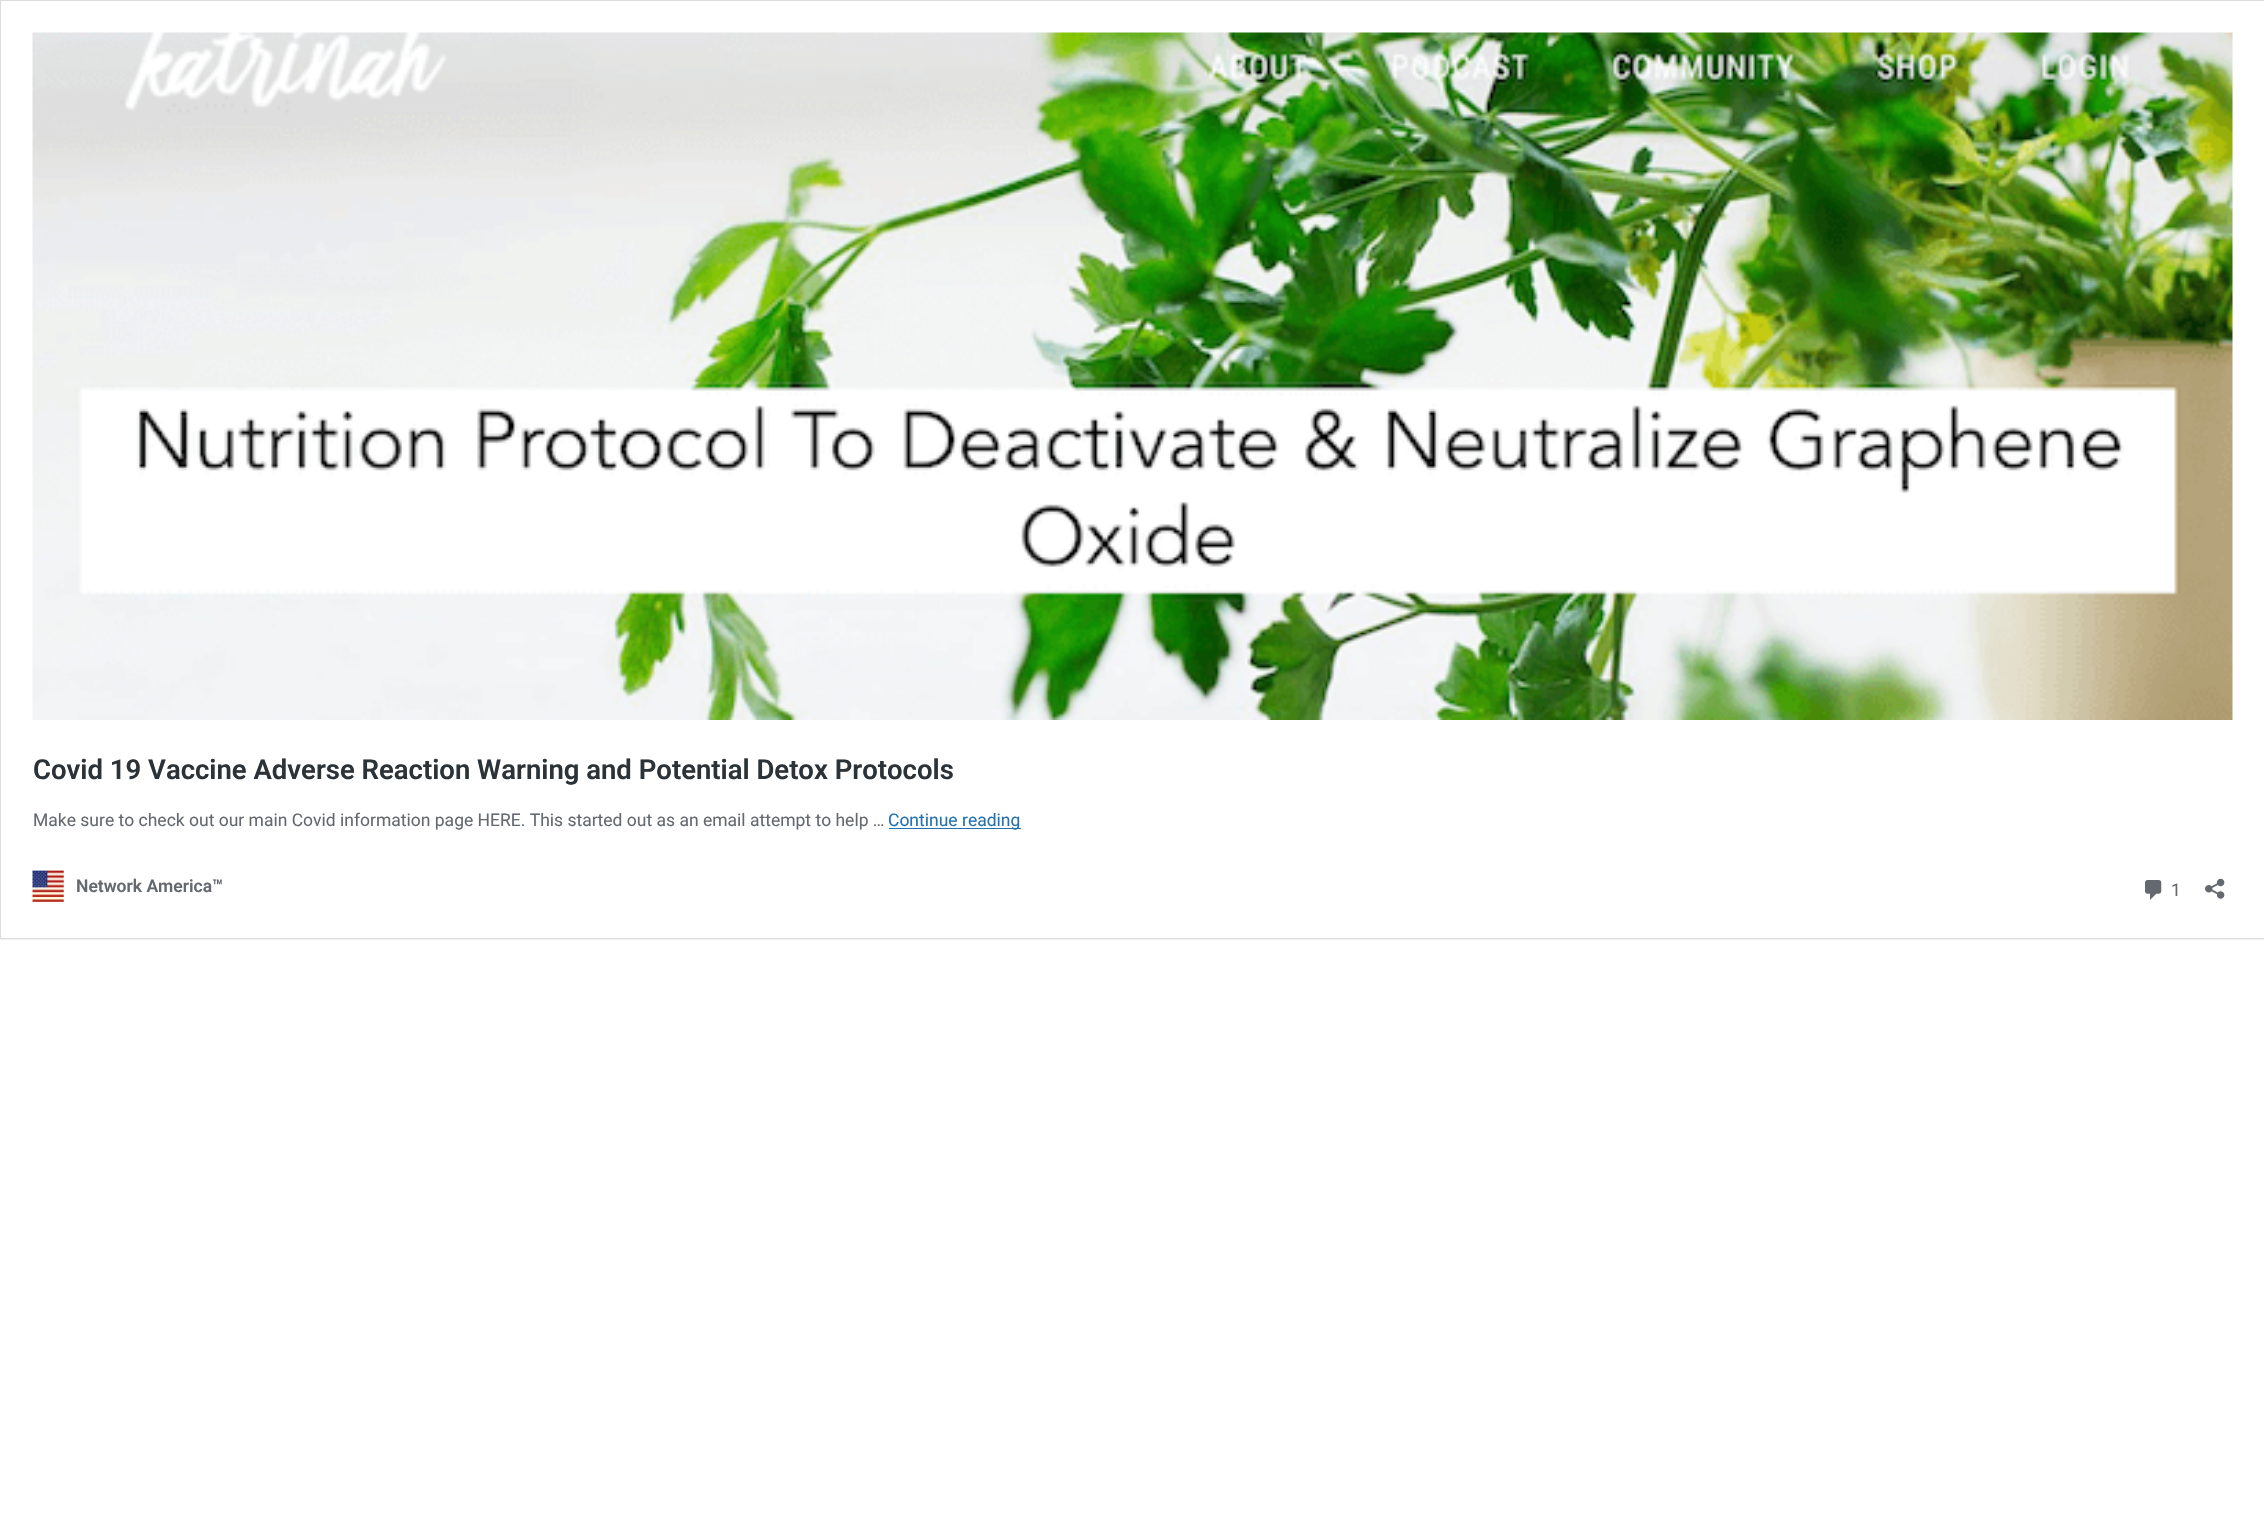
void draw(SkCanvas* canvas) {
	SkPaint paint;
	paint.setAntiAlias(true);
	canvas->clear(0xffffffff);
	paint.setColor(0x0d000000);
	paint.setMaskFilter(SkMaskFilter::MakeBlur(kNormal_SkBlurStyle, 0.5));
	canvas->drawRect(SkRect::MakeXYWH(0, 1, 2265, 939), paint);
	paint.setMaskFilter(nullptr);
	paint.setColor(0xffffffff);
	canvas->drawRect(SkRect::MakeXYWH(0.5, 0.5, 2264, 938), paint);
	paint.setStroke(true);
	paint.setStrokeWidth(1);
	paint.setColor(0xffdcdcde);
	canvas->drawRect(SkRect::MakeXYWH(0.5, 0.5, 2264, 938), paint);
	canvas->drawImageRect(SkImages::DeferredFromEncodedData(SkData::MakeFromFileName("img1.png")), SkRect::MakeXYWH(32, 32, 2201, 688), SkSamplingOptions());
	SkFont f1(fontMgr->matchFamilyStyle("Roboto", SkFontStyle(600, SkFontStyle::kNormal_Width, SkFontStyle::kUpright_Slant)), 27.5);
	f1.setSubpixel(true);
	paint.setStroke(false);
	paint.setColor(0xff2c3338);
	canvas->drawString("Covid 19 Vaccine Adverse Reaction Warning and Potential Detox Protocols", 33, 779, f1, paint);
	SkFont f2(fontMgr->matchFamilyStyle("Roboto", SkFontStyle::Normal()), 17.5);
	f2.setSubpixel(true);
	paint.setColor(0xff646970);
	canvas->drawString("Make sure to check out our main Covid information page HERE. This started out as an email attempt to help …", 33, 826, f2, paint);
	paint.setColor(0xff2271b1);
	canvas->drawRect(SkRect::MakeXYWH(889, 828, 132, 1), paint);
	canvas->drawString("Continue reading", 888, 826, f2, paint);
	canvas->drawImageRect(SkImages::DeferredFromEncodedData(SkData::MakeFromFileName("img2.png")), SkRect::MakeXYWH(32, 870, 32, 32), SkSamplingOptions());
	SkFont f3(fontMgr->matchFamilyStyle("Roboto", SkFontStyle(600, SkFontStyle::kNormal_Width, SkFontStyle::kUpright_Slant)), 17.5);
	f3.setSubpixel(true);
	paint.setColor(0xff646970);
	canvas->drawString("Network America™", 76, 892, f3, paint);
	canvas->drawImageRect(SkImages::DeferredFromEncodedData(SkData::MakeFromFileName("img3.png")), SkRect::MakeXYWH(2145, 880, 17, 20), SkSamplingOptions());
	canvas->drawString("1", 2171, 896, f2, paint);
	canvas->drawImageRect(SkImages::DeferredFromEncodedData(SkData::MakeFromFileName("img4.png")), SkRect::MakeXYWH(2205, 878, 20, 21), SkSamplingOptions());
}
